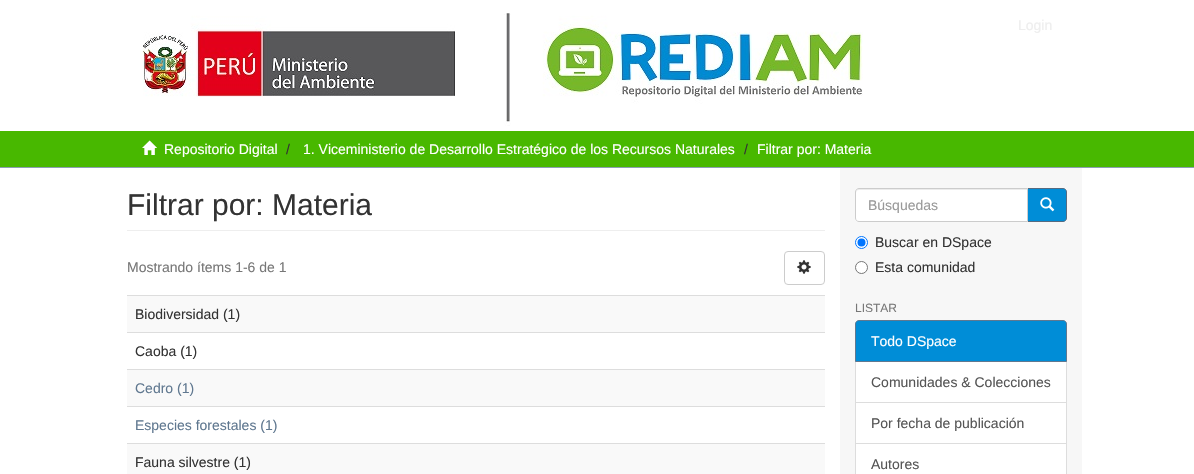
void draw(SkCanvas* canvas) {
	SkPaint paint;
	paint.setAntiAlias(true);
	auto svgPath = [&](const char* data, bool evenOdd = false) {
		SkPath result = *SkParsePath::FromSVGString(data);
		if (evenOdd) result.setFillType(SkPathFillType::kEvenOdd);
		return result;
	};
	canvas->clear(0xffffffff);
	canvas->drawImageRect(SkImages::DeferredFromEncodedData(SkData::MakeFromFileName("img1.png")), SkRect::MakeXYWH(142, 13, 721, 113), SkSamplingOptions());
	SkFont f1(fontMgr->matchFamilyStyle("Liberation Sans", SkFontStyle::Normal()), 14);
	f1.setSubpixel(true);
	paint.setColor(0xffeeeeee);
	canvas->drawString("Login", 1018, 30, f1, paint);
	paint.setColor(0xff48b800);
	canvas->drawRect(SkRect::MakeXYWH(0, 131, 1194, 36), paint);
	paint.setColor(0xff8b9eb2);
	canvas->drawRect(SkRect::MakeXYWH(0, 167, 1194, 1), paint);
	canvas->drawImageRect(SkImages::DeferredFromEncodedData(SkData::MakeFromFileName("img2.png")), SkRect::MakeXYWH(142, 140, 15, 15), SkSamplingOptions());
	paint.setColor(0xffffffff);
	canvas->drawString("Repositorio Digital", 164, 154, f1, paint);
	paint.setColor(0xff333333);
	canvas->drawString("/", 286, 154, f1, paint);
	paint.setColor(0xffffffff);
	canvas->drawString("1. Viceministerio de Desarrollo Estratégico de los Recursos Naturales", 303, 154, f1, paint);
	paint.setColor(0xff333333);
	canvas->drawString("/", 744, 154, f1, paint);
	paint.setColor(0xffffffff);
	canvas->drawString("Filtrar por: Materia", 757, 154, f1, paint);
	paint.setColor(0xfff7f7f7);
	canvas->drawRect(SkRect::MakeXYWH(840, 168, 242, 306), paint);
	paint.setColor(0xffeeeeee);
	canvas->drawRect(SkRect::MakeXYWH(127, 230, 698, 1), paint);
	SkFont f2(fontMgr->matchFamilyStyle("Liberation Sans", SkFontStyle::Normal()), 30);
	f2.setSubpixel(true);
	paint.setColor(0xff333333);
	canvas->drawString("Filtrar por: Materia", 127, 215, f2, paint);
	paint.setColor(0xff777777);
	canvas->drawString("Mostrando ítems 1-6 de 1", 127, 272, f1, paint);
	paint.setStroke(true);
	paint.setStrokeWidth(1);
	paint.setColor(0xffcccccc);
	canvas->drawRoundRect(SkRect::MakeXYWH(784.5, 251.5, 40, 33), 3.5, 3.5, paint);
	canvas->drawImageRect(SkImages::DeferredFromEncodedData(SkData::MakeFromFileName("img3.png")), SkRect::MakeXYWH(797, 260, 14, 14), SkSamplingOptions());
	paint.setStroke(false);
	paint.setColor(0xfff9f9f9);
	canvas->drawRect(SkRect::MakeXYWH(127, 296, 698, 36), paint);
	paint.setColor(0xffdddddd);
	canvas->drawRect(SkRect::MakeXYWH(127, 295, 698, 1), paint);
	paint.setColor(0xff333333);
	canvas->drawString("Biodiversidad (1)", 135, 319, f1, paint);
	paint.setColor(0xffdddddd);
	canvas->drawRect(SkRect::MakeXYWH(127, 332, 698, 1), paint);
	paint.setColor(0xff333333);
	canvas->drawString("Caoba (1)", 135, 356, f1, paint);
	paint.setColor(0xfff9f9f9);
	canvas->drawRect(SkRect::MakeXYWH(127, 370, 698, 36), paint);
	paint.setColor(0xffdddddd);
	canvas->drawRect(SkRect::MakeXYWH(127, 369, 698, 1), paint);
	paint.setColor(0xff607890);
	canvas->drawString("Cedro (1)", 135, 393, f1, paint);
	paint.setColor(0xffdddddd);
	canvas->drawRect(SkRect::MakeXYWH(127, 406, 698, 1), paint);
	paint.setColor(0xff607890);
	canvas->drawString("Especies forestales (1)", 135, 430, f1, paint);
	paint.setColor(0xfff9f9f9);
	canvas->drawRect(SkRect::MakeXYWH(127, 444, 698, 30), paint);
	paint.setColor(0xffdddddd);
	canvas->drawRect(SkRect::MakeXYWH(127, 443, 698, 1), paint);
	paint.setColor(0xff333333);
	canvas->drawString("Fauna silvestre (1)", 135, 467, f1, paint);
	paint.setColor(0xff008dd7);
	canvas->drawPath(svgPath("M1027.5 188.5H1063C1065 188.5 1066.5 190 1066.5 192V218C1066.5 220 1065 221.5 1063 221.5H1027.5Z"), paint);
	paint.setStroke(true);
	paint.setColor(0xff566b81);
	canvas->drawPath(svgPath("M1027.5 188.5H1063C1065 188.5 1066.5 190 1066.5 192V218C1066.5 220 1065 221.5 1063 221.5H1027.5Z"), paint);
	paint.setStroke(false);
	paint.setColor(0xffffffff);
	canvas->drawPath(svgPath("M859 188H1028V222H859C857 222 855 220 855 218V192C855 190 857 188 859 188Z"), paint);
	paint.setColor(0xffececec);
	canvas->drawPath(svgPath("M859 190H1027V189H858C856 189 856 191 856 193C856 191 857 190 859 190Z"), paint);
	paint.setStroke(true);
	paint.setColor(0xffcccccc);
	canvas->drawPath(svgPath("M859 188.5H1027.5V221.5H859C857 221.5 855.5 220 855.5 218V192C855.5 190 857 188.5 859 188.5Z"), paint);
	paint.setStroke(false);
	paint.setColor(0xff999999);
	canvas->drawString("Búsquedas", 868, 210, f1, paint);
	canvas->drawImageRect(SkImages::DeferredFromEncodedData(SkData::MakeFromFileName("img4.png")), SkRect::MakeXYWH(1040, 197, 15, 15), SkSamplingOptions());
	paint.setColor(0xffffffff);
	canvas->drawCircle(861.5, 242.5, 6, paint);
	paint.setStroke(true);
	paint.setColor(0xff0075ff);
	canvas->drawCircle(861.5, 242.5, 6, paint);
	paint.setStroke(false);
	canvas->drawCircle(861.5, 242.5, 4, paint);
	paint.setColor(0xff333333);
	canvas->drawString("Buscar en DSpace", 875, 247, f1, paint);
	paint.setColor(0xffffffff);
	canvas->drawCircle(861.5, 267.5, 6, paint);
	paint.setStroke(true);
	paint.setColor(0xff767676);
	canvas->drawCircle(861.5, 267.5, 6, paint);
	paint.setStroke(false);
	paint.setColor(0xff333333);
	canvas->drawString("Esta comunidad", 875, 272, f1, paint);
	SkFont f3(fontMgr->matchFamilyStyle("Liberation Sans", SkFontStyle::Normal()), 12);
	f3.setSubpixel(true);
	paint.setColor(0xff777777);
	canvas->drawString("LISTAR", 855, 312, f3, paint);
	paint.setColor(0xffffffff);
	canvas->drawRect(SkRect::MakeXYWH(855.5, 361.5, 211, 41), paint);
	paint.setStroke(true);
	paint.setColor(0xffdddddd);
	canvas->drawRect(SkRect::MakeXYWH(855.5, 361.5, 211, 41), paint);
	paint.setStroke(false);
	paint.setColor(0xff008dd7);
	canvas->drawPath(svgPath("M859 320.5H1063C1065 320.5 1066.5 322 1066.5 324V361.5H855.5V324C855.5 322 857 320.5 859 320.5Z"), paint);
	paint.setStroke(true);
	paint.setColor(0xff607890);
	canvas->drawPath(svgPath("M859 320.5H1063C1065 320.5 1066.5 322 1066.5 324V361.5H855.5V324C855.5 322 857 320.5 859 320.5Z"), paint);
	paint.setStroke(false);
	paint.setColor(0xffffffff);
	canvas->drawString("Todo DSpace", 871, 346, f1, paint);
	paint.setColor(0xff555555);
	canvas->drawString("Comunidades & Colecciones", 871, 387, f1, paint);
	paint.setColor(0xffffffff);
	canvas->drawRect(SkRect::MakeXYWH(855.5, 402.5, 211, 41), paint);
	paint.setStroke(true);
	paint.setColor(0xffdddddd);
	canvas->drawRect(SkRect::MakeXYWH(855.5, 402.5, 211, 41), paint);
	paint.setStroke(false);
	paint.setColor(0xff555555);
	canvas->drawString("Por fecha de publicación", 871, 428, f1, paint);
	paint.setColor(0xffffffff);
	canvas->drawRect(SkRect::MakeXYWH(855.5, 443.5, 211, 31), paint);
	paint.setStroke(true);
	paint.setColor(0xffdddddd);
	canvas->drawRect(SkRect::MakeXYWH(855.5, 443.5, 211, 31), paint);
	paint.setStroke(false);
	paint.setColor(0xff555555);
	canvas->drawString("Autores", 871, 469, f1, paint);
}
